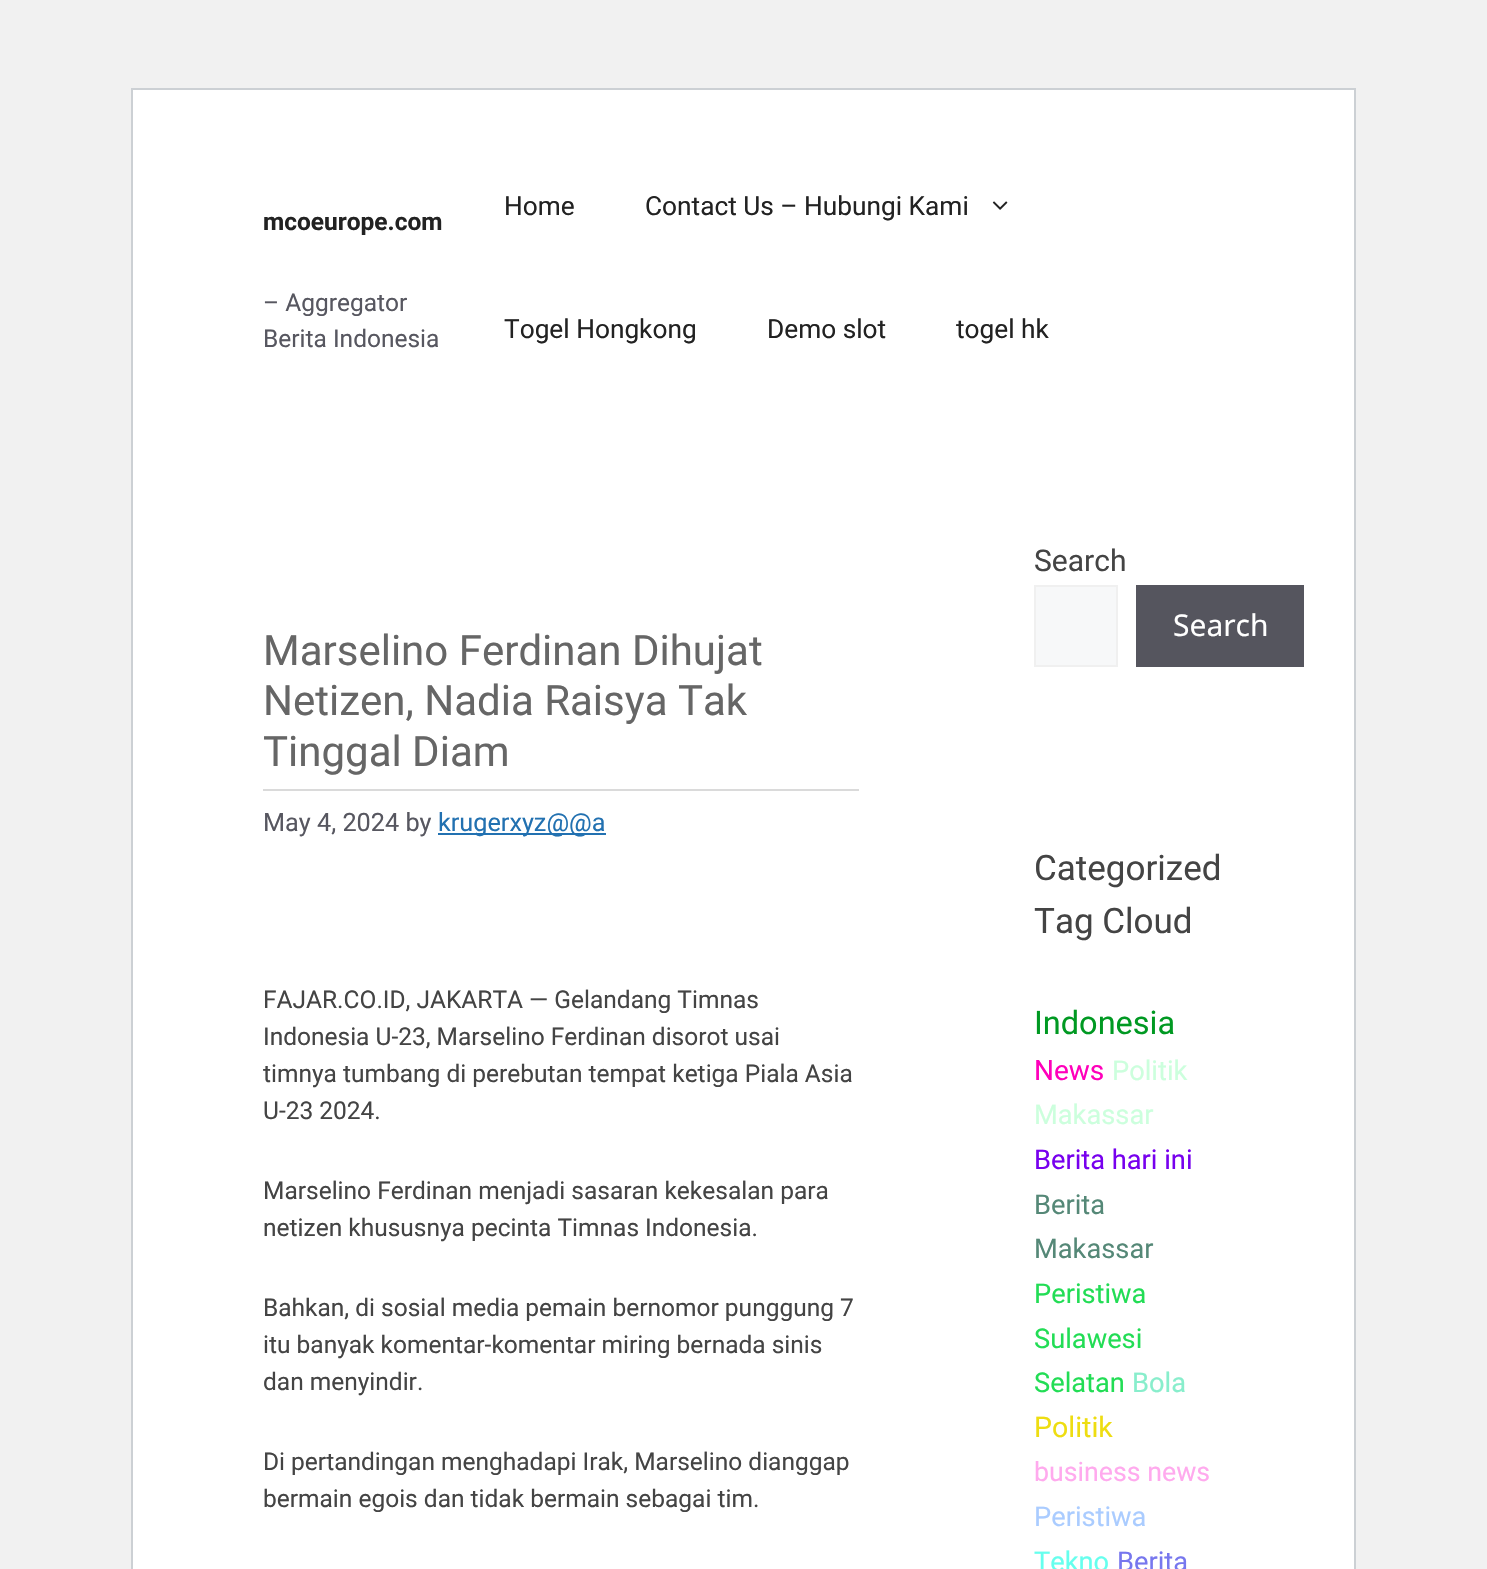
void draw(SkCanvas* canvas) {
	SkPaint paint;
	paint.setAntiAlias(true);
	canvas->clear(0xfff1f1f1);
	paint.setColor(0xffffffff);
	canvas->drawRect(SkRect::MakeXYWH(132, 89, 1223, 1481), paint);
	paint.setStroke(true);
	paint.setStrokeWidth(2);
	paint.setColor(0xffccd0d4);
	canvas->drawRect(SkRect::MakeXYWH(132, 89, 1223, 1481), paint);
	SkFont f1(fontMgr->matchFamilyStyle("Roboto", SkFontStyle::Bold()), 24.5);
	f1.setSubpixel(true);
	paint.setStroke(false);
	paint.setColor(0xff222222);
	canvas->drawString("mcoeurope.com", 263, 230, f1, paint);
	SkFont f2(fontMgr->matchFamilyStyle("Roboto", SkFontStyle::Normal()), 24.5);
	f2.setSubpixel(true);
	paint.setColor(0xff575760);
	canvas->drawString("– Aggregator", 263, 311, f2, paint);
	canvas->drawString("Berita Indonesia", 263, 347, f2, paint);
	SkFont f3(fontMgr->matchFamilyStyle("Roboto", SkFontStyle::Normal()), 26.25);
	f3.setSubpixel(true);
	paint.setColor(0xff222222);
	canvas->drawString("Home", 504, 215, f3, paint);
	canvas->drawString("Contact Us – Hubungi Kami", 645, 215, f3, paint);
	canvas->drawImageRect(SkImages::DeferredFromEncodedData(SkData::MakeFromFileName("img1.png")), SkRect::MakeXYWH(992, 201, 16, 9), SkSamplingOptions());
	canvas->drawString("Togel Hongkong", 504, 338, f3, paint);
	canvas->drawString("Demo slot", 767, 338, f3, paint);
	canvas->drawString("togel hk", 956, 338, f3, paint);
	paint.setColor(0xffdadada);
	canvas->drawRect(SkRect::MakeXYWH(263, 789, 596, 2), paint);
	SkFont f4(fontMgr->matchFamilyStyle("Roboto", SkFontStyle::Normal()), 42);
	f4.setSubpixel(true);
	paint.setColor(0xff666666);
	canvas->drawString("Marselino Ferdinan Dihujat", 263, 665, f4, paint);
	canvas->drawString("Netizen, Nadia Raisya Tak", 263, 715, f4, paint);
	canvas->drawString("Tinggal Diam", 263, 766, f4, paint);
	SkFont f5(fontMgr->matchFamilyStyle("Roboto", SkFontStyle::Normal()), 25.25);
	f5.setSubpixel(true);
	paint.setColor(0xff575760);
	canvas->drawString("May 4, 2024 by", 263, 831, f5, paint);
	paint.setColor(0xff2271b1);
	canvas->drawRect(SkRect::MakeXYWH(438, 833, 168, 2), paint);
	canvas->drawString("krugerxyz@@a", 438, 831, f5, paint);
	paint.setColor(0xff444444);
	canvas->drawString("FAJAR.CO.ID, JAKARTA — Gelandang Timnas", 263, 1008, f2, paint);
	canvas->drawString("Indonesia U-23, Marselino Ferdinan disorot usai", 263, 1045, f2, paint);
	canvas->drawString("timnya tumbang di perebutan tempat ketiga Piala Asia", 263, 1082, f2, paint);
	canvas->drawString("U-23 2024.", 263, 1119, f2, paint);
	canvas->drawString("Marselino Ferdinan menjadi sasaran kekesalan para", 263, 1199, f2, paint);
	canvas->drawString("netizen khususnya pecinta Timnas Indonesia.", 263, 1236, f2, paint);
	canvas->drawString("Bahkan, di sosial media pemain bernomor punggung 7", 263, 1316, f2, paint);
	canvas->drawString("itu banyak komentar-komentar miring bernada sinis", 263, 1353, f2, paint);
	canvas->drawString("dan menyindir.", 263, 1390, f2, paint);
	canvas->drawString("Di pertandingan menghadapi Irak, Marselino dianggap", 263, 1470, f2, paint);
	canvas->drawString("bermain egois dan tidak bermain sebagai tim.", 263, 1507, f2, paint);
	SkFont f6(fontMgr->matchFamilyStyle("Roboto", SkFontStyle::Normal()), 30);
	f6.setSubpixel(true);
	canvas->drawString("Search", 1034, 571, f6, paint);
	paint.setColor(0xfff7f8f9);
	canvas->drawRect(SkRect::MakeXYWH(1035, 586, 82, 80), paint);
	paint.setStroke(true);
	paint.setColor(0xfff0f0f0);
	canvas->drawRect(SkRect::MakeXYWH(1035, 586, 82, 80), paint);
	paint.setStroke(false);
	paint.setColor(0xff55555e);
	canvas->drawRect(SkRect::MakeXYWH(1136, 585, 168, 82), paint);
	SkFont f7(fontMgr->matchFamilyStyle("Noto Sans", SkFontStyle::Normal()), 30);
	f7.setSubpixel(true);
	paint.setColor(0xffffffff);
	canvas->drawString("Search", 1173, 636, f7, paint);
	SkFont f8(fontMgr->matchFamilyStyle("Roboto", SkFontStyle::Normal()), 35);
	f8.setSubpixel(true);
	paint.setColor(0xff444444);
	canvas->drawString("Categorized", 1034, 880, f8, paint);
	canvas->drawString("Tag Cloud", 1034, 933, f8, paint);
	SkFont f9(fontMgr->matchFamilyStyle("Roboto", SkFontStyle::Normal()), 32.5);
	f9.setSubpixel(true);
	paint.setColor(0xff009922);
	canvas->drawString("Indonesia", 1034, 1034, f9, paint);
	SkFont f10(fontMgr->matchFamilyStyle("Roboto", SkFontStyle::Normal()), 28);
	f10.setSubpixel(true);
	paint.setColor(0xffff00bb);
	canvas->drawString("News", 1034, 1080, f10, paint);
	SkFont f11(fontMgr->matchFamilyStyle("Roboto", SkFontStyle::Normal()), 27.25);
	f11.setSubpixel(true);
	paint.setColor(0xffccffdd);
	canvas->drawString("Politik", 1112, 1080, f11, paint);
	canvas->drawString("Makassar", 1034, 1124, f11, paint);
	paint.setColor(0xff7700ee);
	canvas->drawString("Berita hari ini", 1034, 1169, f11, paint);
	paint.setColor(0xff558877);
	canvas->drawString("Berita", 1034, 1214, f11, paint);
	canvas->drawString("Makassar", 1034, 1258, f11, paint);
	paint.setColor(0xff22dd55);
	canvas->drawString("Peristiwa", 1034, 1303, f11, paint);
	canvas->drawString("Sulawesi", 1034, 1348, f11, paint);
	canvas->drawString("Selatan", 1034, 1392, f11, paint);
	paint.setColor(0xff88eecc);
	canvas->drawString("Bola", 1132, 1392, f11, paint);
	SkFont f12(fontMgr->matchFamilyStyle("Roboto", SkFontStyle::Normal()), 28.5);
	f12.setSubpixel(true);
	paint.setColor(0xffeedd11);
	canvas->drawString("Politik", 1034, 1437, f12, paint);
	SkFont f13(fontMgr->matchFamilyStyle("Roboto", SkFontStyle::Normal()), 26.75);
	f13.setSubpixel(true);
	paint.setColor(0xffffaaee);
	canvas->drawString("business news", 1034, 1481, f13, paint);
	paint.setColor(0xffaaccff);
	canvas->drawString("Peristiwa", 1034, 1526, f11, paint);
	paint.setColor(0xff66ffee);
	canvas->drawString("Tekno", 1034, 1571, f11, paint);
	paint.setColor(0xff7777ee);
	canvas->drawString("Berita", 1117, 1571, f11, paint);
}
